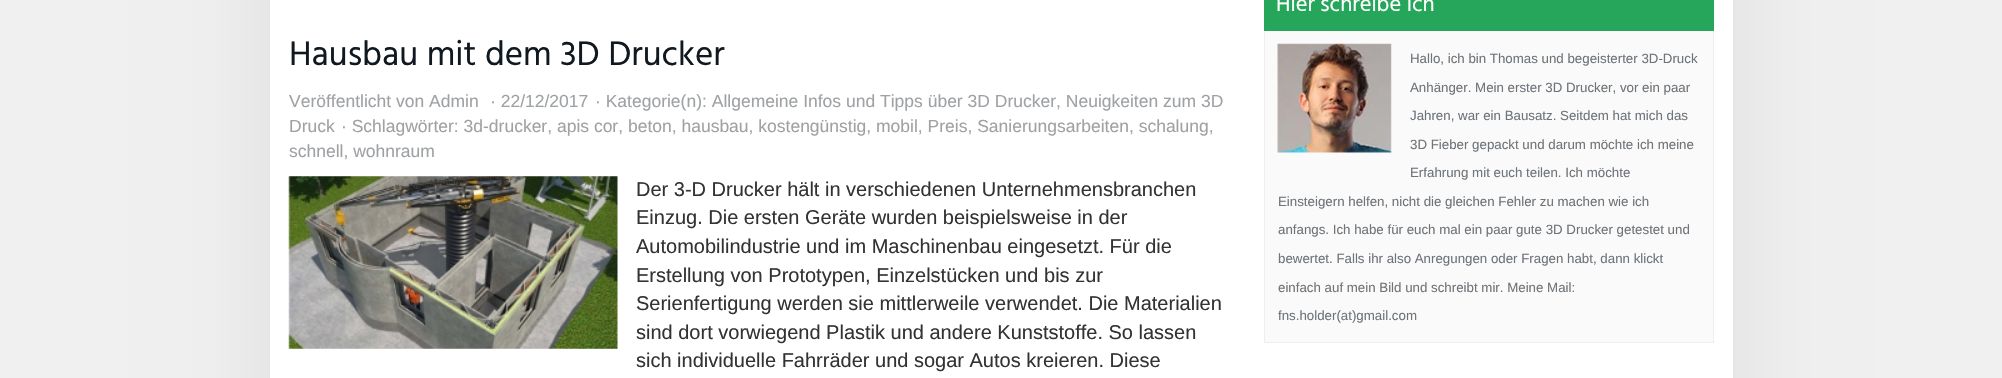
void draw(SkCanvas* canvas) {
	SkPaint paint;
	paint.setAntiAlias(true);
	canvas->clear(0xfff0f0f0);
	paint.setColor(0xffdddddd);
	paint.setMaskFilter(SkMaskFilter::MakeBlur(kNormal_SkBlurStyle, 48));
	canvas->drawRect(SkRect::MakeXYWH(270, -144, 1463, 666), paint);
	paint.setMaskFilter(nullptr);
	paint.setColor(0xffffffff);
	canvas->drawRect(SkRect::MakeXYWH(270, 0, 1463, 378), paint);
	SkFont f1(fontMgr->matchFamilyStyle("Hind", SkFontStyle::Normal()), 35);
	f1.setSubpixel(true);
	paint.setColor(0xff101820);
	canvas->drawString("Hausbau mit dem 3D Drucker", 289, 65, f1, paint);
	SkFont f2(fontMgr->matchFamilyStyle("Liberation Sans", SkFontStyle::Normal()), 17.5);
	f2.setSubpixel(true);
	paint.setColor(0xff9fa2a5);
	canvas->drawString("Veröffentlicht von Admin", 289, 107, f2, paint);
	canvas->drawString("· 22/12/2017", 490, 107, f2, paint);
	canvas->drawString("· Kategorie(n): Allgemeine Infos und Tipps über 3D Drucker, Neuigkeiten zum 3D", 595, 107, f2, paint);
	canvas->drawString("Druck", 289, 132, f2, paint);
	canvas->drawString("· Schlagwörter: 3d-drucker, apis cor, beton, hausbau, kostengünstig, mobil, Preis, Sanierungsarbeiten, schalung,", 341, 132, f2, paint);
	canvas->drawString("schnell, wohnraum", 289, 157, f2, paint);
	canvas->drawImageRect(SkImages::DeferredFromEncodedData(SkData::MakeFromFileName("img1.png")), SkRect::MakeXYWH(288, 176, 330, 173), SkSamplingOptions());
	SkFont f3(fontMgr->matchFamilyStyle("Liberation Sans", SkFontStyle::Normal()), 20);
	f3.setSubpixel(true);
	paint.setColor(0xff333333);
	canvas->drawString("Der 3-D Drucker hält in verschiedenen Unternehmensbranchen", 636, 196, f3, paint);
	canvas->drawString("Einzug. Die ersten Geräte wurden beispielsweise in der", 636, 224, f3, paint);
	canvas->drawString("Automobilindustrie und im Maschinenbau eingesetzt. Für die", 636, 253, f3, paint);
	canvas->drawString("Erstellung von Prototypen, Einzelstücken und bis zur", 636, 282, f3, paint);
	canvas->drawString("Serienfertigung werden sie mittlerweile verwendet. Die Materialien", 636, 310, f3, paint);
	canvas->drawString("sind dort vorwiegend Plastik und andere Kunststoffe. So lassen", 636, 339, f3, paint);
	canvas->drawString("sich individuelle Fahrräder und sogar Autos kreieren. Diese", 636, 367, f3, paint);
	paint.setColor(0xfffafafa);
	canvas->drawRect(SkRect::MakeXYWH(1265, 31, 448, 311), paint);
	paint.setStroke(true);
	paint.setStrokeWidth(1);
	paint.setColor(0xffeeeeee);
	canvas->drawRect(SkRect::MakeXYWH(1264.5, -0.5, 449, 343), paint);
	paint.setStroke(false);
	paint.setColor(0xff26a65b);
	canvas->drawRect(SkRect::MakeXYWH(1264, 0, 450, 31), paint);
	SkFont f4(fontMgr->matchFamilyStyle("Hind", SkFontStyle::Normal()), 22.5);
	f4.setSubpixel(true);
	paint.setColor(0xffffffff);
	canvas->drawString("Hier schreibe ich", 1276, 11, f4, paint);
	canvas->drawImageRect(SkImages::DeferredFromEncodedData(SkData::MakeFromFileName("img2.png")), SkRect::MakeXYWH(1277, 43, 115, 110), SkSamplingOptions());
	SkFont f5(fontMgr->matchFamilyStyle("Liberation Sans", SkFontStyle::Normal()), 13.3);
	f5.setSubpixel(true);
	paint.setColor(0xff6f7479);
	canvas->drawString("Hallo, ich bin Thomas und begeisterter 3D-Druck", 1410, 63, f5, paint);
	canvas->drawString("Anhänger. Mein erster 3D Drucker, vor ein paar", 1410, 92, f5, paint);
	canvas->drawString("Jahren, war ein Bausatz. Seitdem hat mich das", 1410, 120, f5, paint);
	canvas->drawString("3D Fieber gepackt und darum möchte ich meine", 1410, 149, f5, paint);
	canvas->drawString("Erfahrung mit euch teilen. Ich möchte", 1410, 177, f5, paint);
	canvas->drawString("Einsteigern helfen, nicht die gleichen Fehler zu machen wie ich", 1278, 206, f5, paint);
	canvas->drawString("anfangs. Ich habe für euch mal ein paar gute 3D Drucker getestet und", 1278, 234, f5, paint);
	canvas->drawString("bewertet. Falls ihr also Anregungen oder Fragen habt, dann klickt", 1278, 263, f5, paint);
	canvas->drawString("einfach auf mein Bild und schreibt mir. Meine Mail:", 1278, 292, f5, paint);
	canvas->drawString("fns.holder(at)gmail.com", 1278, 320, f5, paint);
}
